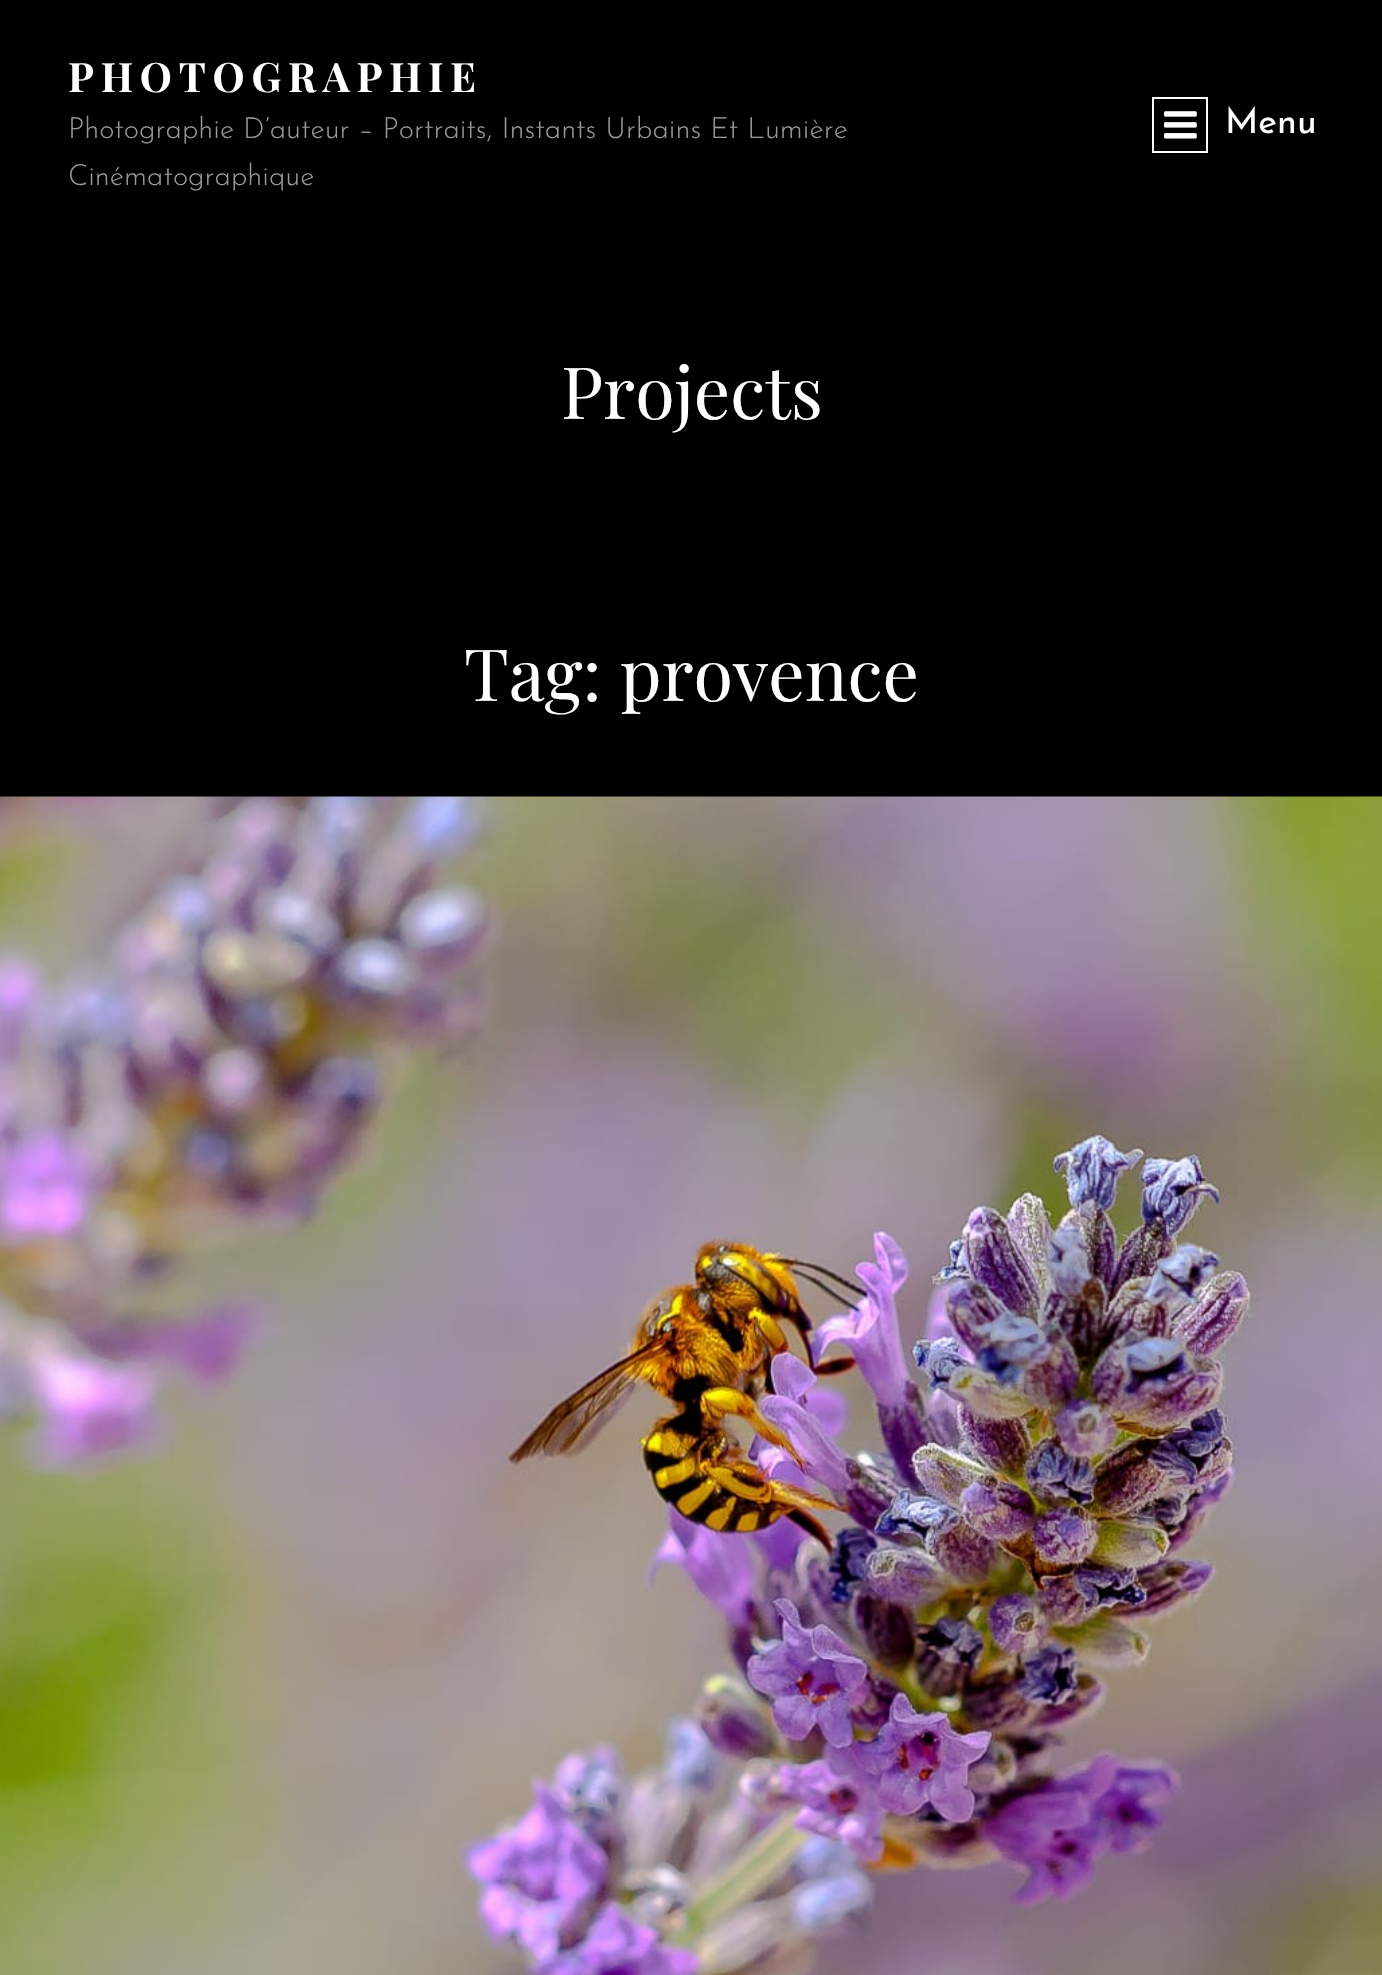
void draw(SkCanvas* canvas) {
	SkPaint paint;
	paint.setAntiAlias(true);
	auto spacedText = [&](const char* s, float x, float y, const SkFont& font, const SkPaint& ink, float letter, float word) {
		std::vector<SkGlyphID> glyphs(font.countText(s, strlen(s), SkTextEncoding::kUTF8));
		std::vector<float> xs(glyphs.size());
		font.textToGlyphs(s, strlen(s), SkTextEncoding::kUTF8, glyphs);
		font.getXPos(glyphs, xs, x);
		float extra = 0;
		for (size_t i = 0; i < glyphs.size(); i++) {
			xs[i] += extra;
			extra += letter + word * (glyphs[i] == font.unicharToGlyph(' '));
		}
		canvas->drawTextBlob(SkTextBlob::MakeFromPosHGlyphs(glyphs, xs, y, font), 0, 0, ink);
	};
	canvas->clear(0xff000000);
	SkFont f1(fontMgr->matchFamilyStyle("Playfair Display", SkFontStyle::Bold()), 40.5);
	f1.setSubpixel(true);
	paint.setColor(0xffffffff);
	spacedText("PHOTOGRAPHIE", 68, 92, f1, paint, 6.75, 0);
	SkFont f2(fontMgr->matchFamilyStyle("Josefin Sans", SkFontStyle(300, SkFontStyle::kNormal_Width, SkFontStyle::kUpright_Slant)), 29.25);
	f2.setSubpixel(true);
	paint.setColor(0xff999999);
	canvas->drawString("Photographie D’auteur – Portraits, Instants Urbains Et Lumière", 68, 138, f2, paint);
	canvas->drawString("Cinématographique", 68, 185, f2, paint);
	paint.setStroke(true);
	paint.setStrokeWidth(2);
	paint.setColor(0xffffffff);
	canvas->drawRect(SkRect::MakeXYWH(1153, 98, 54, 54), paint);
	canvas->drawImageRect(SkImages::DeferredFromEncodedData(SkData::MakeFromFileName("img1.png")), SkRect::MakeXYWH(1164, 111, 33, 28), SkSamplingOptions());
	SkFont f3(fontMgr->matchFamilyStyle("Josefin Sans", SkFontStyle::Normal()), 36);
	f3.setSubpixel(true);
	paint.setStroke(false);
	canvas->drawString("Menu", 1225, 133, f3, paint);
	SkFont f4(fontMgr->matchFamilyStyle("Playfair Display", SkFontStyle::Normal()), 72);
	f4.setSubpixel(true);
	canvas->drawString("Projects", 561, 419, f4, paint);
	canvas->drawString("Tag: provence", 464, 701, f4, paint);
	canvas->drawImageRect(SkImages::DeferredFromEncodedData(SkData::MakeFromFileName("img2.png")), SkRect::MakeXYWH(0, 796, 1382, 1179), SkSamplingOptions());
}
